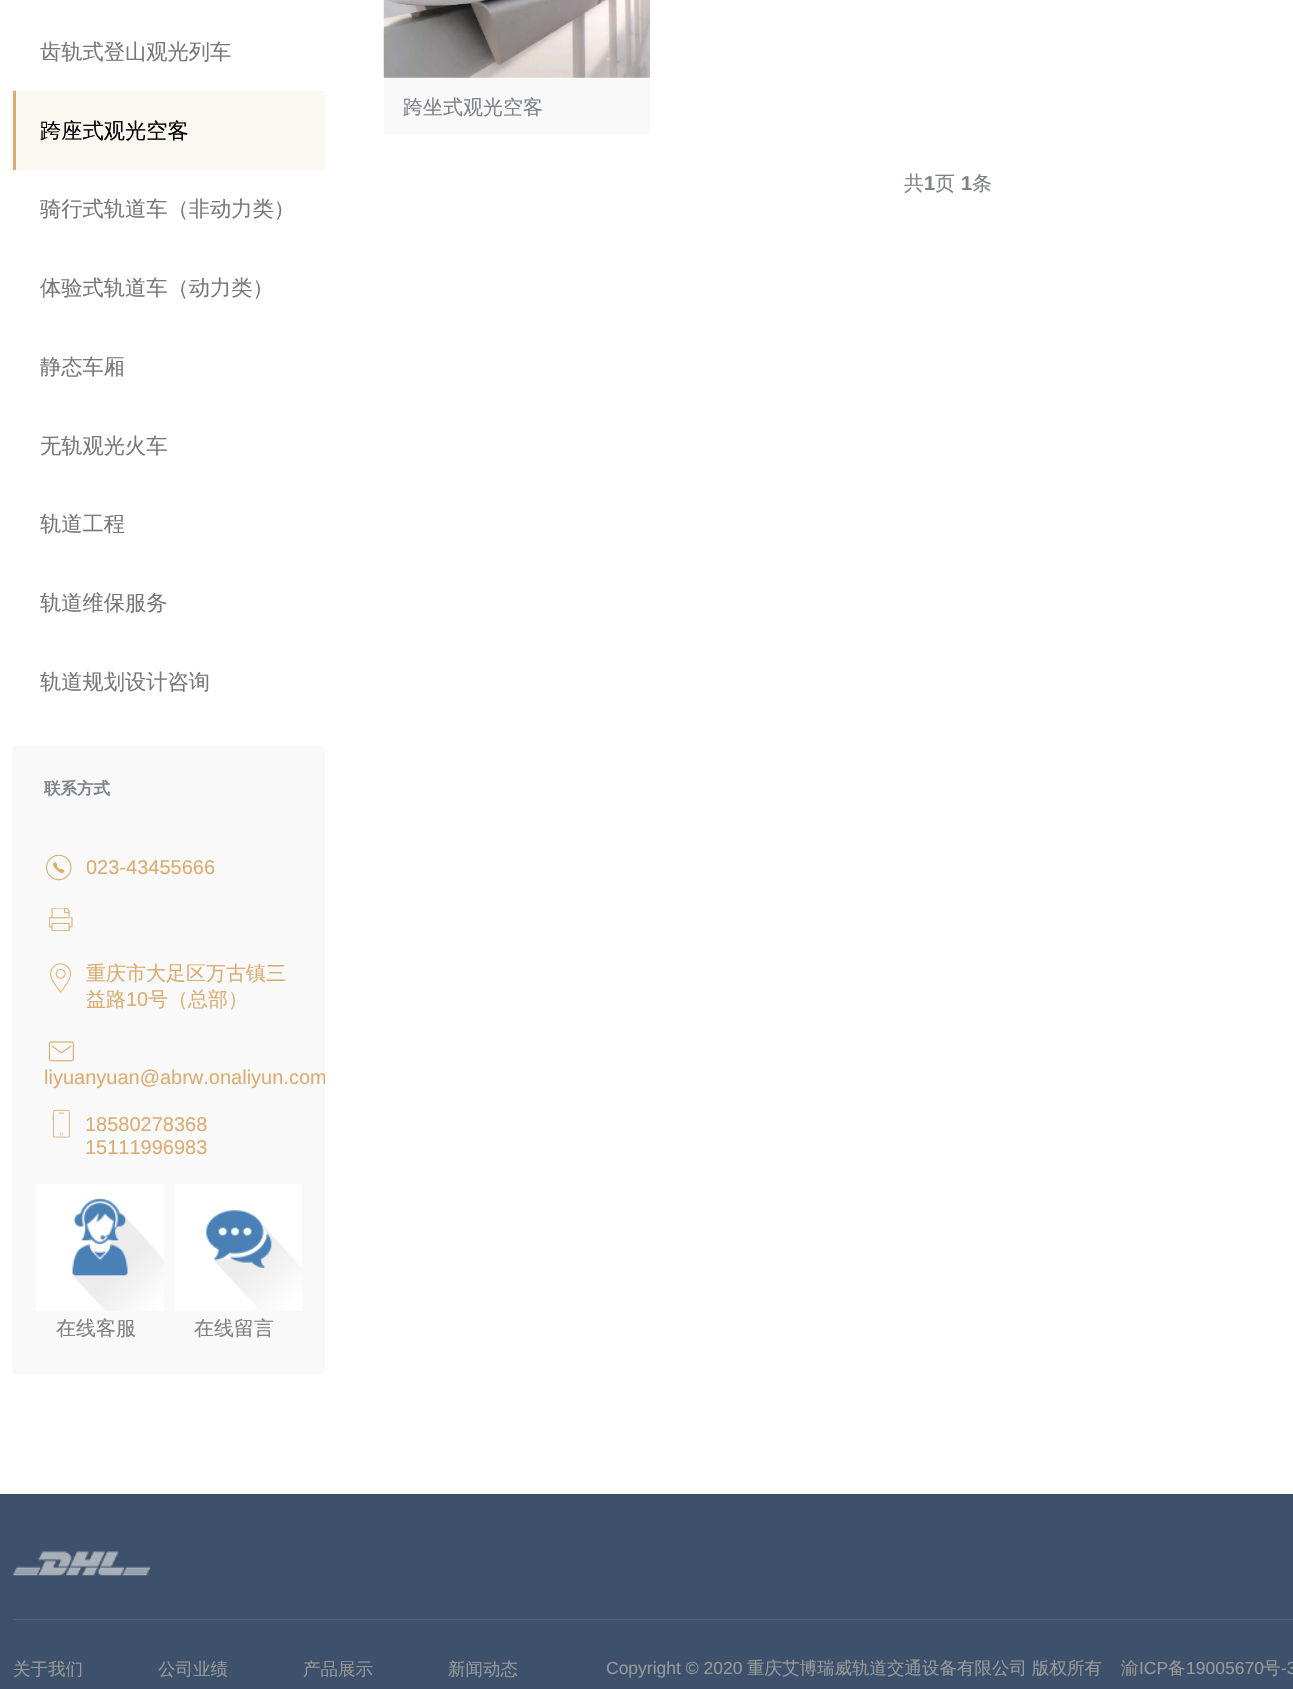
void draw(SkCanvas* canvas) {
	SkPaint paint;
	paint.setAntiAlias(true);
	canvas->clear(0xffffffff);
	SkFont f1(fontMgr->matchFamilyStyle("WenQuanYi Zen Hei", SkFontStyle(500, SkFontStyle::kNormal_Width, SkFontStyle::kUpright_Slant)), 21.25);
	f1.setSubpixel(true);
	paint.setColor(0xff777777);
	canvas->drawString("齿轨式登山观光列车", 40, 59, f1, paint);
	paint.setColor(0xfffbf7f1);
	canvas->drawRect(SkRect::MakeXYWH(16, 91, 309, 79), paint);
	paint.setColor(0xffdbad72);
	canvas->drawRect(SkRect::MakeXYWH(13, 91, 3, 79), paint);
	paint.setColor(0xff000000);
	canvas->drawString("跨座式观光空客", 40, 138, f1, paint);
	paint.setColor(0xff777777);
	canvas->drawString("骑行式轨道车（非动力类）", 40, 216, f1, paint);
	canvas->drawString("体验式轨道车（动力类）", 40, 295, f1, paint);
	canvas->drawString("静态车厢", 40, 374, f1, paint);
	canvas->drawString("无轨观光火车", 40, 453, f1, paint);
	canvas->drawString("轨道工程", 40, 531, f1, paint);
	canvas->drawString("轨道维保服务", 40, 610, f1, paint);
	canvas->drawString("轨道规划设计咨询", 40, 689, f1, paint);
	paint.setColor(0xfff9f9f9);
	canvas->drawRect(SkRect::MakeXYWH(13, 746, 312, 628), paint);
	SkFont f2(fontMgr->matchFamilyStyle("WenQuanYi Zen Hei", SkFontStyle::Bold()), 16.5);
	f2.setSubpixel(true);
	paint.setColor(0xff7d8287);
	canvas->drawString("联系方式", 44, 794, f2, paint);
	canvas->drawImageRect(SkImages::DeferredFromEncodedData(SkData::MakeFromFileName("img1.png")), SkRect::MakeXYWH(45, 854, 27, 27), SkSamplingOptions());
	SkFont f3(fontMgr->matchFamilyStyle("Liberation Sans", SkFontStyle::Normal()), 20);
	f3.setSubpixel(true);
	paint.setColor(0xffdbad72);
	canvas->drawString("023-43455666", 86, 874, f3, paint);
	canvas->drawImageRect(SkImages::DeferredFromEncodedData(SkData::MakeFromFileName("img2.png")), SkRect::MakeXYWH(49, 908, 24, 23), SkSamplingOptions());
	canvas->drawImageRect(SkImages::DeferredFromEncodedData(SkData::MakeFromFileName("img3.png")), SkRect::MakeXYWH(50, 963, 21, 30), SkSamplingOptions());
	SkFont f4(fontMgr->matchFamilyStyle("WenQuanYi Zen Hei", SkFontStyle(500, SkFontStyle::kNormal_Width, SkFontStyle::kUpright_Slant)), 20);
	f4.setSubpixel(true);
	canvas->drawString("重庆市大足区万古镇三", 86, 980, f4, paint);
	canvas->drawString("益路", 86, 1006, f4, paint);
	canvas->drawString("10", 126, 1006, f3, paint);
	canvas->drawString("号（总部）", 148, 1006, f4, paint);
	canvas->drawImageRect(SkImages::DeferredFromEncodedData(SkData::MakeFromFileName("img4.png")), SkRect::MakeXYWH(48, 1041, 26, 21), SkSamplingOptions());
	canvas->save();
	canvas->clipRect(SkRect::MakeXYWH(13, 746, 312, 628));
	canvas->drawString("liyuanyuan@abrw.onaliyun.com", 44, 1084, f3, paint);
	canvas->restore();
	canvas->drawImageRect(SkImages::DeferredFromEncodedData(SkData::MakeFromFileName("img5.png")), SkRect::MakeXYWH(52, 1109, 18, 29), SkSamplingOptions());
	canvas->drawString("18580278368", 85, 1131, f3, paint);
	canvas->drawString("15111996983", 85, 1154, f3, paint);
	canvas->drawImageRect(SkImages::DeferredFromEncodedData(SkData::MakeFromFileName("img6.png")), SkRect::MakeXYWH(36, 1184, 128, 127), SkSamplingOptions());
	paint.setColor(0xff7d8287);
	canvas->drawString("在线客服", 56, 1335, f4, paint);
	canvas->drawImageRect(SkImages::DeferredFromEncodedData(SkData::MakeFromFileName("img7.png")), SkRect::MakeXYWH(175, 1184, 127, 127), SkSamplingOptions());
	canvas->drawString("在线留言", 194, 1335, f4, paint);
	paint.setColor(0xfff9f9f9);
	canvas->drawRect(SkRect::MakeXYWH(384, 77, 266, 57), paint);
	canvas->drawImageRect(SkImages::DeferredFromEncodedData(SkData::MakeFromFileName("img8.png")), SkRect::MakeXYWH(383, 0, 267, 78), SkSamplingOptions());
	paint.setColor(0xff7d8287);
	canvas->drawString("跨坐式观光空客", 403, 114, f4, paint);
	canvas->drawString("共", 904, 190, f4, paint);
	SkFont f5(fontMgr->matchFamilyStyle("Liberation Sans", SkFontStyle::Bold()), 20);
	f5.setSubpixel(true);
	canvas->drawString("1", 924, 190, f5, paint);
	canvas->drawString("页", 935, 190, f4, paint);
	canvas->drawString("1", 961, 190, f5, paint);
	canvas->drawString("条", 972, 190, f4, paint);
	paint.setColor(0xff3d516c);
	canvas->drawRect(SkRect::MakeXYWH(0, 1494, 1293, 195), paint);
	canvas->drawImageRect(SkImages::DeferredFromEncodedData(SkData::MakeFromFileName("img9.png")), SkRect::MakeXYWH(12, 1551, 138, 25), SkSamplingOptions());
	paint.setColor(0xff4d627e);
	canvas->drawRect(SkRect::MakeXYWH(13, 1619, 1280, 1), paint);
	SkFont f6(fontMgr->matchFamilyStyle("WenQuanYi Zen Hei", SkFontStyle(500, SkFontStyle::kNormal_Width, SkFontStyle::kUpright_Slant)), 17.5);
	f6.setSubpixel(true);
	paint.setColor(0xff999999);
	canvas->drawString("关于我们", 13, 1675, f6, paint);
	canvas->drawString("公司业绩", 158, 1675, f6, paint);
	canvas->drawString("产品展示", 303, 1675, f6, paint);
	canvas->drawString("新闻动态", 448, 1675, f6, paint);
	SkFont f7(fontMgr->matchFamilyStyle("Liberation Sans", SkFontStyle::Normal()), 17.5);
	f7.setSubpixel(true);
	canvas->drawString("Copyright © 2020", 606, 1674, f7, paint);
	canvas->drawString("重庆艾博瑞威轨道交通设备有限公司", 747, 1674, f6, paint);
	canvas->drawString("版权所有", 1032, 1674, f6, paint);
	canvas->drawString("渝", 1121, 1674, f6, paint);
	canvas->drawString("ICP", 1139, 1674, f7, paint);
	canvas->drawString("备", 1168, 1674, f6, paint);
	canvas->drawString("19005670", 1186, 1674, f7, paint);
	canvas->drawString("号", 1263, 1674, f6, paint);
	canvas->drawString("-3", 1281, 1674, f7, paint);
}
